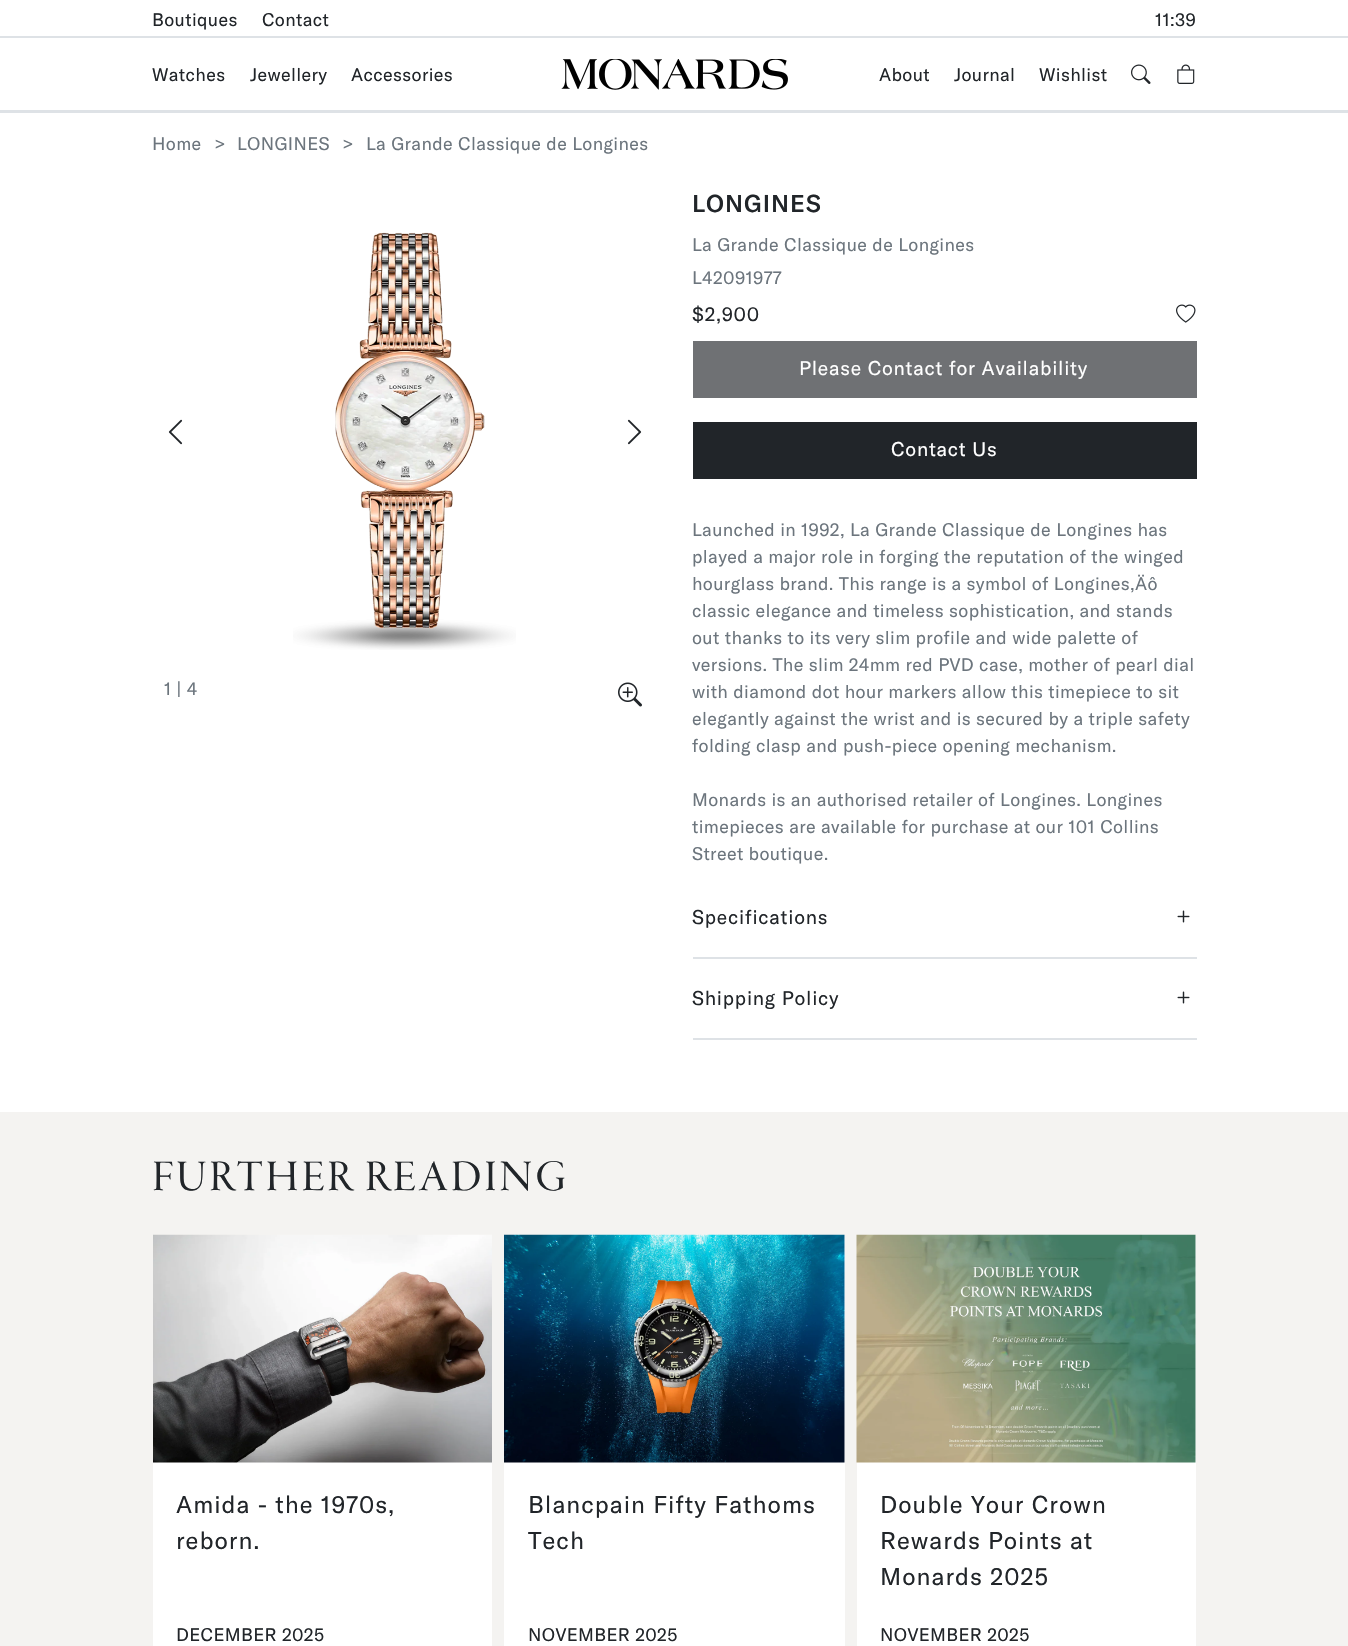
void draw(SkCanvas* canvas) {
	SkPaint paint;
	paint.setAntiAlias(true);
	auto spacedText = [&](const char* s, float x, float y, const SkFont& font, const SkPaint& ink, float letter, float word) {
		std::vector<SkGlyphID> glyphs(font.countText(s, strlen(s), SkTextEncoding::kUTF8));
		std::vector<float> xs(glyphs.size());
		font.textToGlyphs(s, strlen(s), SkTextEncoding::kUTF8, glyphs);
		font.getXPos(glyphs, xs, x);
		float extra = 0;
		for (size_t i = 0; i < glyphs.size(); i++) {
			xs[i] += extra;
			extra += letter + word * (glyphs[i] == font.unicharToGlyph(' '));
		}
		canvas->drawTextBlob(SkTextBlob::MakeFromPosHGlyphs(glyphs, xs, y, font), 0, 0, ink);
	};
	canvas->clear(0xffffffff);
	SkFont f1(fontMgr->matchFamilyStyle("GT America", SkFontStyle::Normal()), 18);
	f1.setSubpixel(true);
	paint.setColor(0xff212529);
	spacedText("Boutiques", 152, 26, f1, paint, 0.35, 0);
	spacedText("Contact", 262, 26, f1, paint, 0.35, 0);
	spacedText("11:39", 1155, 26, f1, paint, 0.35, 0);
	paint.setColor(0xffdee2e6);
	canvas->drawRect(SkRect::MakeXYWH(0, 36, 1348, 2), paint);
	paint.setColor(0xff212529);
	spacedText("Watches", 152, 81, f1, paint, 0.35, 0);
	spacedText("Jewellery", 250, 81, f1, paint, 0.35, 0);
	spacedText("Accessories", 351, 81, f1, paint, 0.35, 0);
	canvas->drawImageRect(SkImages::DeferredFromEncodedData(SkData::MakeFromFileName("img1.png")), SkRect::MakeXYWH(561, 59, 227, 31), SkSamplingOptions());
	spacedText("About", 879, 81, f1, paint, 0.35, 0);
	spacedText("Journal", 954, 81, f1, paint, 0.35, 0);
	spacedText("Wishlist", 1039, 81, f1, paint, 0.35, 0);
	canvas->drawImageRect(SkImages::DeferredFromEncodedData(SkData::MakeFromFileName("img2.png")), SkRect::MakeXYWH(1131, 64, 20, 20), SkSamplingOptions());
	canvas->drawImageRect(SkImages::DeferredFromEncodedData(SkData::MakeFromFileName("img3.png")), SkRect::MakeXYWH(1177, 64, 18, 20), SkSamplingOptions());
	paint.setColor(0xffdee2e6);
	canvas->drawRect(SkRect::MakeXYWH(0, 110, 1348, 3), paint);
	paint.setColor(0xff6c757d);
	spacedText("Home", 152, 150, f1, paint, 0.35, 0);
	spacedText(">", 214, 150, f1, paint, 0.35, 0);
	spacedText("LONGINES", 237, 150, f1, paint, 0.35, 0);
	spacedText(">", 342, 150, f1, paint, 0.35, 0);
	spacedText("La Grande Classique de Longines", 366, 150, f1, paint, 0.35, 0);
	canvas->drawImageRect(SkImages::DeferredFromEncodedData(SkData::MakeFromFileName("img4.png")), SkRect::MakeXYWH(168, 419, 15, 26), SkSamplingOptions());
	canvas->drawImageRect(SkImages::DeferredFromEncodedData(SkData::MakeFromFileName("img5.png")), SkRect::MakeXYWH(293, 232, 223, 418), SkSamplingOptions());
	canvas->drawImageRect(SkImages::DeferredFromEncodedData(SkData::MakeFromFileName("img6.png")), SkRect::MakeXYWH(627, 419, 15, 26), SkSamplingOptions());
	spacedText("1 | 4", 164, 695, f1, paint, 0.35, 0);
	canvas->drawImageRect(SkImages::DeferredFromEncodedData(SkData::MakeFromFileName("img7.png")), SkRect::MakeXYWH(618, 682, 24, 25), SkSamplingOptions());
	SkFont f2(fontMgr->matchFamilyStyle("GT America", SkFontStyle(500, SkFontStyle::kNormal_Width, SkFontStyle::kUpright_Slant)), 24);
	f2.setSubpixel(true);
	paint.setColor(0xff212529);
	spacedText("LONGINES", 692, 212, f2, paint, 1, 0);
	paint.setColor(0xff6c757d);
	spacedText("La Grande Classique de Longines", 692, 251, f1, paint, 0.35, 0);
	spacedText("L42091977", 692, 284, f1, paint, 0.35, 0);
	SkFont f3(fontMgr->matchFamilyStyle("GT America", SkFontStyle::Normal()), 19.5);
	f3.setSubpixel(true);
	paint.setColor(0xff212529);
	spacedText("$2,900", 692, 321, f3, paint, 0.75, 0);
	canvas->drawImageRect(SkImages::DeferredFromEncodedData(SkData::MakeFromFileName("img8.png")), SkRect::MakeXYWH(1176, 304, 20, 19), SkSamplingOptions());
	paint.setColor(0xff6f7174);
	canvas->drawRect(SkRect::MakeXYWH(693, 341, 504, 57), paint);
	paint.setColor(0xffffffff);
	spacedText("Please Contact for Availability", 799, 375, f3, paint, 0.75, 0);
	paint.setColor(0xff212529);
	canvas->drawRect(SkRect::MakeXYWH(693, 422, 504, 57), paint);
	paint.setColor(0xffffffff);
	spacedText("Contact Us", 891, 456, f3, paint, 0.75, 0);
	paint.setColor(0xff6c757d);
	spacedText("Launched in 1992, La Grande Classique de Longines has", 692, 536, f1, paint, 0.35, 0);
	spacedText("played a major role in forging the reputation of the winged", 692, 563, f1, paint, 0.35, 0);
	spacedText("hourglass brand. This range is a symbol of Longines‚Äô", 692, 590, f1, paint, 0.35, 0);
	spacedText("classic elegance and timeless sophistication, and stands", 692, 617, f1, paint, 0.35, 0);
	spacedText("out thanks to its very slim profile and wide palette of", 692, 644, f1, paint, 0.35, 0);
	spacedText("versions. The slim 24mm red PVD case, mother of pearl dial", 692, 671, f1, paint, 0.35, 0);
	spacedText("with diamond dot hour markers allow this timepiece to sit", 692, 698, f1, paint, 0.35, 0);
	spacedText("elegantly against the wrist and is secured by a triple safety", 692, 725, f1, paint, 0.35, 0);
	spacedText("folding clasp and push-piece opening mechanism.", 692, 752, f1, paint, 0.35, 0);
	spacedText("Monards is an authorised retailer of Longines. Longines", 692, 806, f1, paint, 0.35, 0);
	spacedText("timepieces are available for purchase at our 101 Collins", 692, 833, f1, paint, 0.35, 0);
	spacedText("Street boutique.", 692, 860, f1, paint, 0.35, 0);
	paint.setColor(0xffdee2e6);
	canvas->drawRect(SkRect::MakeXYWH(693, 957, 504, 2), paint);
	paint.setColor(0xff212529);
	spacedText("Specifications", 692, 924, f3, paint, 0.75, 0);
	canvas->drawImageRect(SkImages::DeferredFromEncodedData(SkData::MakeFromFileName("img9.png")), SkRect::MakeXYWH(1177, 910, 13, 13), SkSamplingOptions());
	paint.setColor(0xffdee2e6);
	canvas->drawRect(SkRect::MakeXYWH(693, 1038, 504, 2), paint);
	paint.setColor(0xff212529);
	spacedText("Shipping Policy", 692, 1005, f3, paint, 0.75, 0);
	canvas->drawImageRect(SkImages::DeferredFromEncodedData(SkData::MakeFromFileName("img9.png")), SkRect::MakeXYWH(1177, 991, 13, 13), SkSamplingOptions());
	paint.setColor(0xfff4f3f1);
	canvas->drawRect(SkRect::MakeXYWH(0, 1112, 1348, 534), paint);
	SkFont f4(fontMgr->matchFamilyStyle("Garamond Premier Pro", SkFontStyle::Normal()), 45);
	f4.setSubpixel(true);
	paint.setColor(0xff212529);
	spacedText("FURTHER READING", 152, 1190, f4, paint, 2.75, 0);
	paint.setColor(0xffffffff);
	canvas->drawRect(SkRect::MakeXYWH(153, 1462, 339, 184), paint);
	canvas->drawImageRect(SkImages::DeferredFromEncodedData(SkData::MakeFromFileName("img10.png")), SkRect::MakeXYWH(153, 1234, 339, 229), SkSamplingOptions());
	SkFont f5(fontMgr->matchFamilyStyle("GT America", SkFontStyle::Normal()), 24);
	f5.setSubpixel(true);
	paint.setColor(0xff212529);
	spacedText("Amida - the 1970s,", 176, 1513, f5, paint, 1, 0);
	spacedText("reborn.", 176, 1549, f5, paint, 1, 0);
	spacedText("DECEMBER 2025", 176, 1641, f1, paint, 0.35, 0);
	paint.setColor(0xffffffff);
	canvas->drawRect(SkRect::MakeXYWH(504, 1235, 341, 411), paint);
	canvas->drawImageRect(SkImages::DeferredFromEncodedData(SkData::MakeFromFileName("img11.png")), SkRect::MakeXYWH(504, 1234, 341, 229), SkSamplingOptions());
	paint.setColor(0xff212529);
	spacedText("Blancpain Fifty Fathoms", 528, 1513, f5, paint, 1, 0);
	spacedText("Tech", 528, 1549, f5, paint, 1, 0);
	spacedText("NOVEMBER 2025", 528, 1641, f1, paint, 0.35, 0);
	paint.setColor(0xffffffff);
	canvas->drawRect(SkRect::MakeXYWH(857, 1235, 339, 411), paint);
	canvas->drawImageRect(SkImages::DeferredFromEncodedData(SkData::MakeFromFileName("img12.png")), SkRect::MakeXYWH(856, 1234, 340, 229), SkSamplingOptions());
	paint.setColor(0xff212529);
	spacedText("Double Your Crown", 880, 1513, f5, paint, 1, 0);
	spacedText("Rewards Points at", 880, 1549, f5, paint, 1, 0);
	spacedText("Monards 2025", 880, 1585, f5, paint, 1, 0);
	spacedText("NOVEMBER 2025", 880, 1641, f1, paint, 0.35, 0);
}
